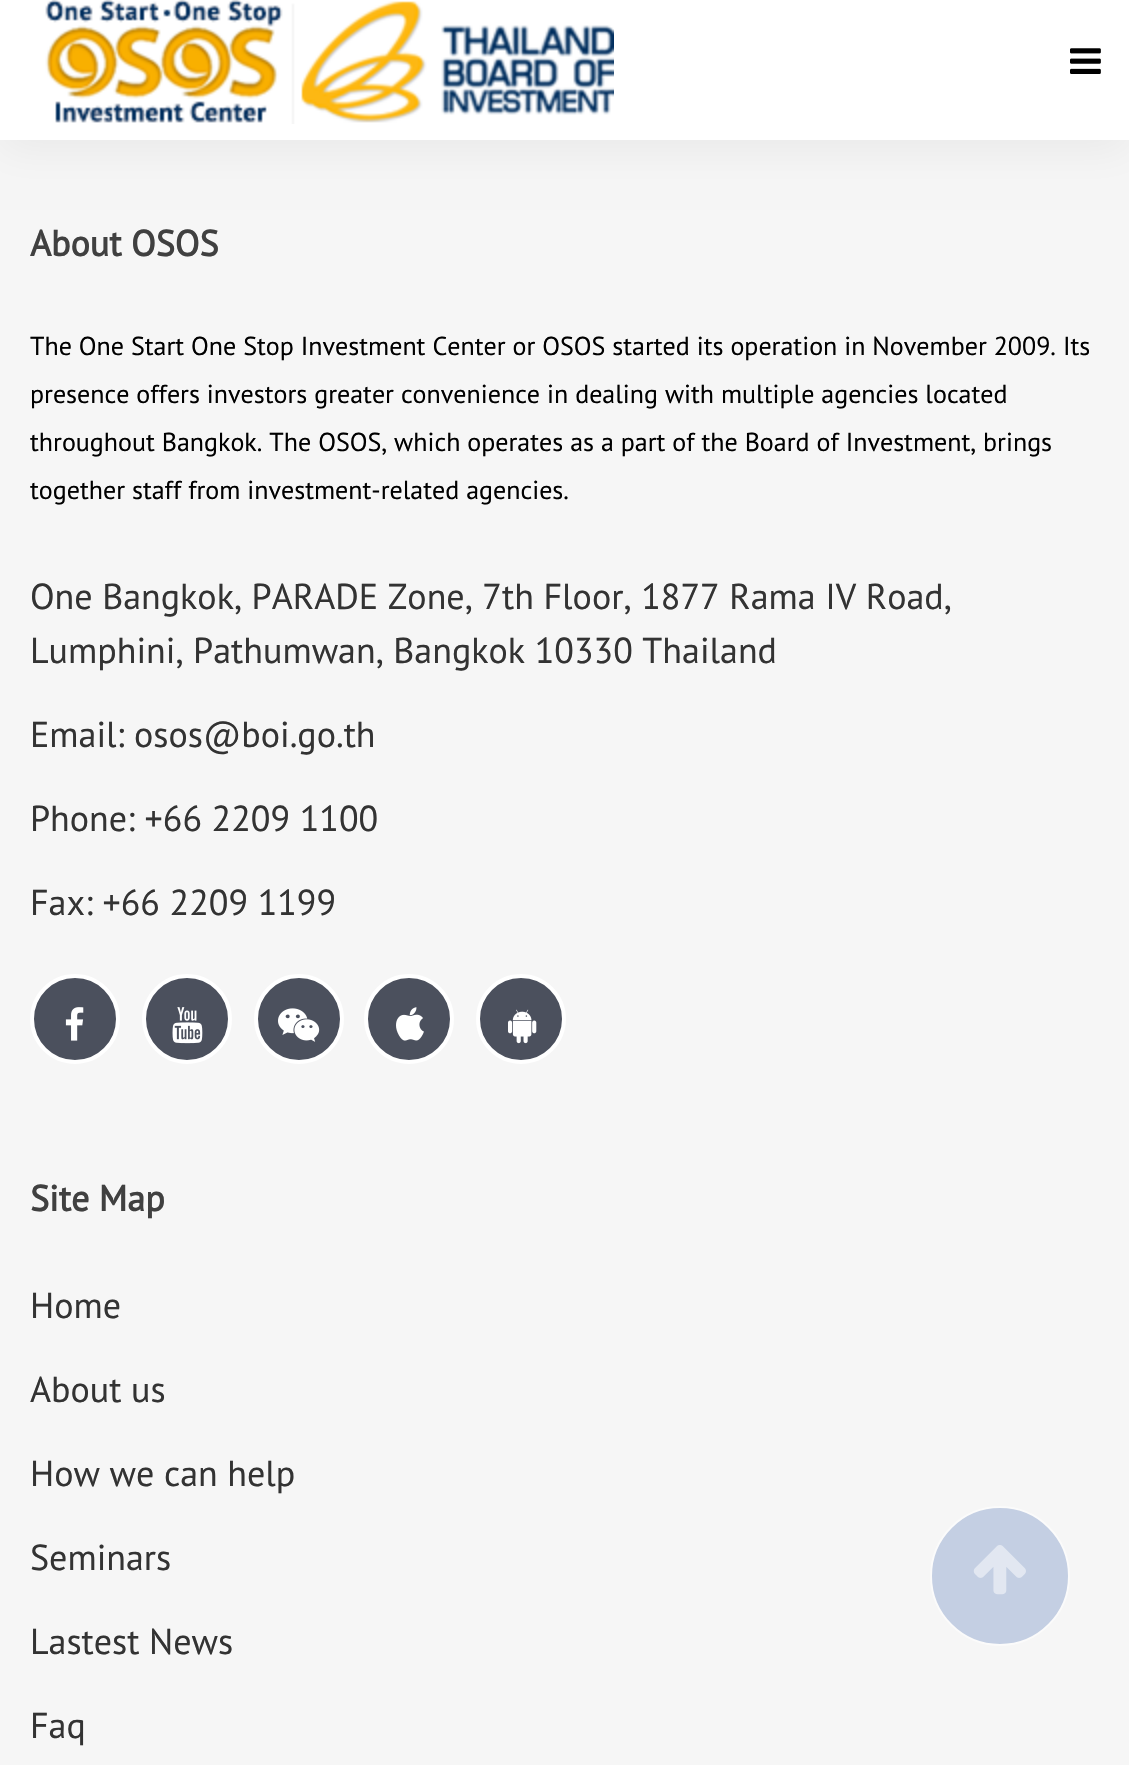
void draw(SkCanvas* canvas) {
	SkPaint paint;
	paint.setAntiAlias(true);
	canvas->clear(0xfff6f6f6);
	paint.setColor(0x0d000000);
	paint.setMaskFilter(SkMaskFilter::MakeBlur(kNormal_SkBlurStyle, 20));
	canvas->drawRect(SkRect::MakeXYWH(0, -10, 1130, 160), paint);
	paint.setMaskFilter(nullptr);
	paint.setColor(0xffffffff);
	canvas->drawRect(SkRect::MakeXYWH(0, 0, 1129, 140), paint);
	canvas->drawImageRect(SkImages::DeferredFromEncodedData(SkData::MakeFromFileName("img1.png")), SkRect::MakeXYWH(45, 0, 569, 124), SkSamplingOptions());
	canvas->drawImageRect(SkImages::DeferredFromEncodedData(SkData::MakeFromFileName("img2.png")), SkRect::MakeXYWH(1070, 48, 31, 26), SkSamplingOptions());
	SkFont f1(fontMgr->matchFamilyStyle("PT Sans", SkFontStyle::Bold()), 36);
	f1.setSubpixel(true);
	paint.setColor(0xff404040);
	canvas->drawString("About OSOS", 30, 256, f1, paint);
	SkFont f2(fontMgr->matchFamilyStyle("PT Sans", SkFontStyle::Normal()), 26);
	f2.setSubpixel(true);
	paint.setColor(0xff000000);
	canvas->drawString("The One Start One Stop Investment Center or OSOS started its operation in November 2009. Its", 30, 355, f2, paint);
	canvas->drawString("presence offers investors greater convenience in dealing with multiple agencies located", 30, 403, f2, paint);
	canvas->drawString("throughout Bangkok. The OSOS, which operates as a part of the Board of Investment, brings", 30, 451, f2, paint);
	canvas->drawString("together staff from investment-related agencies.", 30, 499, f2, paint);
	SkFont f3(fontMgr->matchFamilyStyle("PT Sans", SkFontStyle::Normal()), 36);
	f3.setSubpixel(true);
	paint.setColor(0xff333333);
	canvas->drawString("One Bangkok, PARADE Zone, 7th Floor, 1877 Rama IV Road,", 30, 609, f3, paint);
	canvas->drawString("Lumphini, Pathumwan, Bangkok 10330 Thailand", 30, 663, f3, paint);
	canvas->drawString("Email: osos@boi.go.th", 30, 747, f3, paint);
	canvas->drawString("Phone: +66 2209 1100", 30, 831, f3, paint);
	canvas->drawString("Fax: +66 2209 1199", 30, 915, f3, paint);
	paint.setColor(0xff4b505d);
	canvas->drawCircle(75, 1019, 43, paint);
	paint.setStroke(true);
	paint.setStrokeWidth(4);
	paint.setColor(0xffffffff);
	canvas->drawCircle(75, 1019, 43, paint);
	canvas->drawImageRect(SkImages::DeferredFromEncodedData(SkData::MakeFromFileName("img3.png")), SkRect::MakeXYWH(65, 1007, 19, 34), SkSamplingOptions());
	paint.setStroke(false);
	paint.setColor(0xff4b505d);
	canvas->drawCircle(187, 1019, 43, paint);
	paint.setStroke(true);
	paint.setColor(0xffffffff);
	canvas->drawCircle(187, 1019, 43, paint);
	canvas->drawImageRect(SkImages::DeferredFromEncodedData(SkData::MakeFromFileName("img4.png")), SkRect::MakeXYWH(172, 1007, 31, 37), SkSamplingOptions());
	paint.setStroke(false);
	paint.setColor(0xff4b505d);
	canvas->drawCircle(299, 1019, 43, paint);
	paint.setStroke(true);
	paint.setColor(0xffffffff);
	canvas->drawCircle(299, 1019, 43, paint);
	canvas->drawImageRect(SkImages::DeferredFromEncodedData(SkData::MakeFromFileName("img5.png")), SkRect::MakeXYWH(278, 1008, 42, 34), SkSamplingOptions());
	paint.setStroke(false);
	paint.setColor(0xff4b505d);
	canvas->drawCircle(409, 1019, 43, paint);
	paint.setStroke(true);
	paint.setColor(0xffffffff);
	canvas->drawCircle(409, 1019, 43, paint);
	canvas->drawImageRect(SkImages::DeferredFromEncodedData(SkData::MakeFromFileName("img6.png")), SkRect::MakeXYWH(396, 1007, 28, 34), SkSamplingOptions());
	paint.setStroke(false);
	paint.setColor(0xff4b505d);
	canvas->drawCircle(521, 1019, 43, paint);
	paint.setStroke(true);
	paint.setColor(0xffffffff);
	canvas->drawCircle(521, 1019, 43, paint);
	canvas->drawImageRect(SkImages::DeferredFromEncodedData(SkData::MakeFromFileName("img7.png")), SkRect::MakeXYWH(508, 1009, 29, 35), SkSamplingOptions());
	paint.setStroke(false);
	paint.setColor(0xff404040);
	canvas->drawString("Site Map", 30, 1211, f1, paint);
	paint.setColor(0xff333333);
	canvas->drawString("Home", 30, 1318, f3, paint);
	canvas->drawString("About us", 30, 1402, f3, paint);
	canvas->drawString("How we can help", 30, 1486, f3, paint);
	canvas->drawString("Seminars", 30, 1570, f3, paint);
	canvas->drawString("Lastest News", 30, 1654, f3, paint);
	canvas->drawString("Faq", 30, 1738, f3, paint);
	paint.setColor(0xffc4cfe3);
	canvas->drawCircle(1000, 1576, 69, paint);
	paint.setStroke(true);
	paint.setStrokeWidth(2);
	paint.setColor(0xfffbfbfb);
	canvas->drawCircle(1000, 1576, 69, paint);
	canvas->drawImageRect(SkImages::DeferredFromEncodedData(SkData::MakeFromFileName("img8.png")), SkRect::MakeXYWH(973, 1545, 53, 50), SkSamplingOptions());
}
